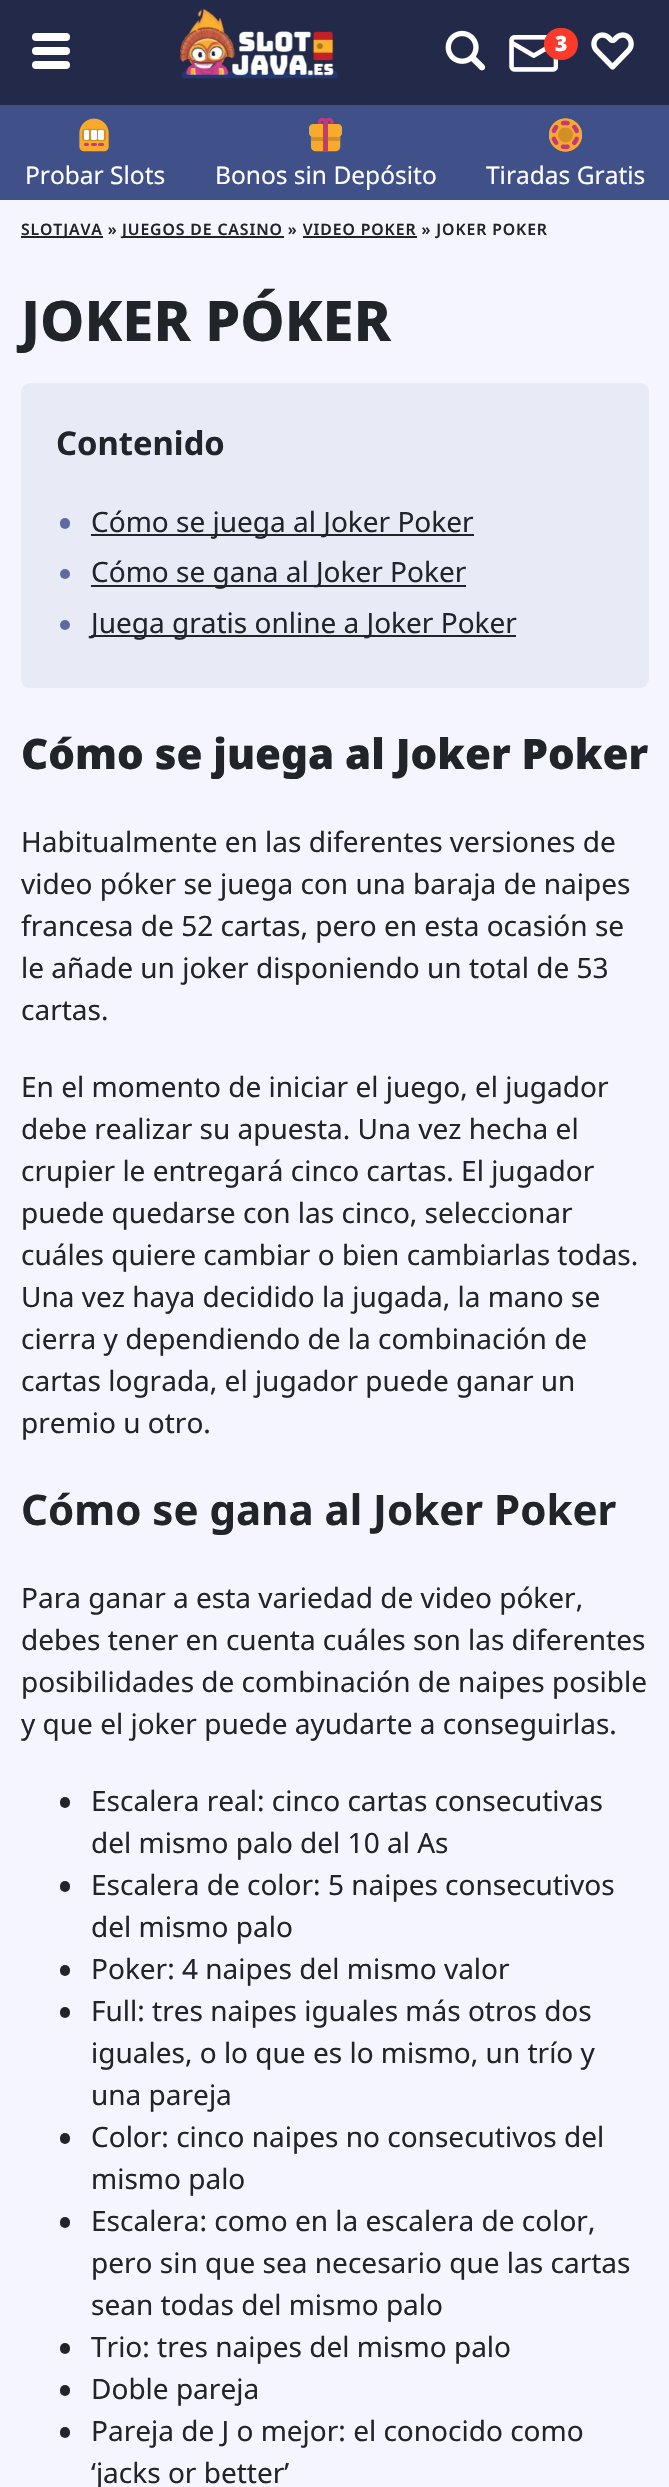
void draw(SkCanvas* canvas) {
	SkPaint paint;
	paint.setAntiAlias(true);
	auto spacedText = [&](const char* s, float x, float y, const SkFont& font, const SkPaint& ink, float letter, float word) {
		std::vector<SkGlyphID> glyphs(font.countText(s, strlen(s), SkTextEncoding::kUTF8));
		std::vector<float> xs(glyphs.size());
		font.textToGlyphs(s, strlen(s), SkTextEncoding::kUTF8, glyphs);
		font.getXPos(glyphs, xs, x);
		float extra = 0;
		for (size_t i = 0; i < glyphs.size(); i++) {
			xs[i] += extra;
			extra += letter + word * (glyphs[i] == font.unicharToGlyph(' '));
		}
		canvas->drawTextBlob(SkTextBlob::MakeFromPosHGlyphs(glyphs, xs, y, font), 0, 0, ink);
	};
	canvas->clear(0xfff5f5ff);
	paint.setColor(0xff222949);
	canvas->drawRect(SkRect::MakeXYWH(0, 0, 669, 105), paint);
	paint.setColor(0xffffffff);
	canvas->drawRoundRect(SkRect::MakeXYWH(32, 33, 38, 8), 4, 4, paint);
	canvas->drawRoundRect(SkRect::MakeXYWH(32, 47, 38, 8), 4, 4, paint);
	canvas->drawRoundRect(SkRect::MakeXYWH(32, 61, 38, 8), 4, 4, paint);
	canvas->drawImageRect(SkImages::DeferredFromEncodedData(SkData::MakeFromFileName("img1.png")), SkRect::MakeXYWH(180, 8, 158, 71), SkSamplingOptions());
	canvas->drawImageRect(SkImages::DeferredFromEncodedData(SkData::MakeFromFileName("img2.png")), SkRect::MakeXYWH(445, 30, 41, 41), SkSamplingOptions());
	canvas->drawImageRect(SkImages::DeferredFromEncodedData(SkData::MakeFromFileName("img3.png")), SkRect::MakeXYWH(509, 35, 49, 37), SkSamplingOptions());
	paint.setColor(0xfffb3a2b);
	canvas->drawRoundRect(SkRect::MakeXYWH(544, 28, 34, 32), 16, 16, paint);
	SkFont f1(fontMgr->matchFamilyStyle("Noto Sans", SkFontStyle(900, SkFontStyle::kNormal_Width, SkFontStyle::kUpright_Slant)), 21);
	f1.setSubpixel(true);
	paint.setColor(0xffffffff);
	canvas->drawString("3", 555, 51, f1, paint);
	canvas->drawImageRect(SkImages::DeferredFromEncodedData(SkData::MakeFromFileName("img4.png")), SkRect::MakeXYWH(591, 32, 43, 38), SkSamplingOptions());
	paint.setColor(0xff405088);
	canvas->drawRect(SkRect::MakeXYWH(0, 105, 669, 95), paint);
	canvas->drawImageRect(SkImages::DeferredFromEncodedData(SkData::MakeFromFileName("img5.png")), SkRect::MakeXYWH(79, 118, 30, 34), SkSamplingOptions());
	SkFont f2(fontMgr->matchFamilyStyle("Noto Sans", SkFontStyle::Normal()), 24.5);
	f2.setSubpixel(true);
	paint.setColor(0xffffffff);
	canvas->drawString("Probar Slots", 25, 184, f2, paint);
	canvas->drawImageRect(SkImages::DeferredFromEncodedData(SkData::MakeFromFileName("img6.png")), SkRect::MakeXYWH(309, 117, 33, 35), SkSamplingOptions());
	canvas->drawString("Bonos sin Depósito", 215, 184, f2, paint);
	canvas->drawImageRect(SkImages::DeferredFromEncodedData(SkData::MakeFromFileName("img7.png")), SkRect::MakeXYWH(549, 118, 33, 34), SkSamplingOptions());
	canvas->drawString("Tiradas Gratis", 486, 184, f2, paint);
	paint.setColor(0xff212529);
	canvas->drawRect(SkRect::MakeXYWH(21, 236, 82, 2), paint);
	SkFont f3(fontMgr->matchFamilyStyle("Noto Sans", SkFontStyle(600, SkFontStyle::kNormal_Width, SkFontStyle::kUpright_Slant)), 15.75);
	f3.setSubpixel(true);
	spacedText("SLOTJAVA »", 21, 235, f3, paint, 0.9, 0);
	canvas->drawRect(SkRect::MakeXYWH(123, 236, 161, 2), paint);
	spacedText("JUEGOS DE CASINO » VIDEO POKER » JOKER POKER", 122, 235, f3, paint, 0.9, 0);
	canvas->drawRect(SkRect::MakeXYWH(303, 236, 114, 2), paint);
	SkFont f4(fontMgr->matchFamilyStyle("Noto Sans", SkFontStyle(800, SkFontStyle::kNormal_Width, SkFontStyle::kUpright_Slant)), 56);
	f4.setSubpixel(true);
	canvas->drawString("JOKER PÓKER", 21, 341, f4, paint);
	paint.setColor(0xffe8eaf6);
	canvas->drawRoundRect(SkRect::MakeXYWH(21, 383, 628, 305), 9, 9, paint);
	SkFont f5(fontMgr->matchFamilyStyle("Noto Sans", SkFontStyle::Bold()), 32.75);
	f5.setSubpixel(true);
	paint.setColor(0xff212529);
	canvas->drawString("Contenido", 56, 455, f5, paint);
	paint.setColor(0xff5c6ca3);
	canvas->drawRoundRect(SkRect::MakeXYWH(60, 518, 10, 11), 5, 5, paint);
	paint.setColor(0xff212529);
	canvas->drawRect(SkRect::MakeXYWH(91, 534, 383, 2), paint);
	SkFont f6(fontMgr->matchFamilyStyle("Noto Sans", SkFontStyle::Normal()), 28);
	f6.setSubpixel(true);
	canvas->drawString("Cómo se juega al Joker Poker", 91, 532, f6, paint);
	paint.setColor(0xff5c6ca3);
	canvas->drawCircle(65, 574, 5, paint);
	paint.setColor(0xff212529);
	canvas->drawRect(SkRect::MakeXYWH(91, 585, 375, 2), paint);
	canvas->drawString("Cómo se gana al Joker Poker", 91, 582, f6, paint);
	paint.setColor(0xff5c6ca3);
	canvas->drawCircle(65, 625, 5, paint);
	paint.setColor(0xff212529);
	canvas->drawRect(SkRect::MakeXYWH(91, 635, 425, 2), paint);
	canvas->drawString("Juega gratis online a Joker Poker", 91, 633, f6, paint);
	SkFont f7(fontMgr->matchFamilyStyle("Noto Sans", SkFontStyle(900, SkFontStyle::kNormal_Width, SkFontStyle::kUpright_Slant)), 42);
	f7.setSubpixel(true);
	canvas->drawString("Cómo se juega al Joker Poker", 21, 769, f7, paint);
	canvas->drawString("Habitualmente en las diferentes versiones de", 21, 852, f6, paint);
	canvas->drawString("video póker se juega con una baraja de naipes", 21, 894, f6, paint);
	canvas->drawString("francesa de 52 cartas, pero en esta ocasión se", 21, 936, f6, paint);
	canvas->drawString("le añade un joker disponiendo un total de 53", 21, 978, f6, paint);
	canvas->drawString("cartas.", 21, 1020, f6, paint);
	canvas->drawString("En el momento de iniciar el juego, el jugador", 21, 1097, f6, paint);
	canvas->drawString("debe realizar su apuesta. Una vez hecha el", 21, 1139, f6, paint);
	canvas->drawString("crupier le entregará cinco cartas. El jugador", 21, 1181, f6, paint);
	canvas->drawString("puede quedarse con las cinco, seleccionar", 21, 1223, f6, paint);
	canvas->drawString("cuáles quiere cambiar o bien cambiarlas todas.", 21, 1265, f6, paint);
	canvas->drawString("Una vez haya decidido la jugada, la mano se", 21, 1307, f6, paint);
	canvas->drawString("cierra y dependiendo de la combinación de", 21, 1349, f6, paint);
	canvas->drawString("cartas lograda, el jugador puede ganar un", 21, 1391, f6, paint);
	canvas->drawString("premio u otro.", 21, 1433, f6, paint);
	SkFont f8(fontMgr->matchFamilyStyle("Noto Sans", SkFontStyle::Bold()), 42);
	f8.setSubpixel(true);
	canvas->drawString("Cómo se gana al Joker Poker", 21, 1525, f8, paint);
	canvas->drawString("Para ganar a esta variedad de video póker,", 21, 1608, f6, paint);
	canvas->drawString("debes tener en cuenta cuáles son las diferentes", 21, 1650, f6, paint);
	canvas->drawString("posibilidades de combinación de naipes posible", 21, 1692, f6, paint);
	canvas->drawString("y que el joker puede ayudarte a conseguirlas.", 21, 1734, f6, paint);
	canvas->drawRoundRect(SkRect::MakeXYWH(60, 1797, 10, 11), 5, 5, paint);
	canvas->drawString("Escalera real: cinco cartas consecutivas", 91, 1811, f6, paint);
	canvas->drawString("del mismo palo del 10 al As", 91, 1853, f6, paint);
	canvas->drawRoundRect(SkRect::MakeXYWH(60, 1881, 10, 11), 5, 5, paint);
	canvas->drawString("Escalera de color: 5 naipes consecutivos", 91, 1895, f6, paint);
	canvas->drawString("del mismo palo", 91, 1937, f6, paint);
	canvas->drawRoundRect(SkRect::MakeXYWH(60, 1965, 10, 11), 5, 5, paint);
	canvas->drawString("Poker: 4 naipes del mismo valor", 91, 1979, f6, paint);
	canvas->drawRoundRect(SkRect::MakeXYWH(60, 2007, 10, 11), 5, 5, paint);
	canvas->drawString("Full: tres naipes iguales más otros dos", 91, 2021, f6, paint);
	canvas->drawString("iguales, o lo que es lo mismo, un trío y", 91, 2063, f6, paint);
	canvas->drawString("una pareja", 91, 2105, f6, paint);
	canvas->drawRoundRect(SkRect::MakeXYWH(60, 2133, 10, 11), 5, 5, paint);
	canvas->drawString("Color: cinco naipes no consecutivos del", 91, 2147, f6, paint);
	canvas->drawString("mismo palo", 91, 2189, f6, paint);
	canvas->drawRoundRect(SkRect::MakeXYWH(60, 2217, 10, 11), 5, 5, paint);
	canvas->drawString("Escalera: como en la escalera de color,", 91, 2231, f6, paint);
	canvas->drawString("pero sin que sea necesario que las cartas", 91, 2273, f6, paint);
	canvas->drawString("sean todas del mismo palo", 91, 2315, f6, paint);
	canvas->drawRoundRect(SkRect::MakeXYWH(60, 2343, 10, 11), 5, 5, paint);
	canvas->drawString("Trio: tres naipes del mismo palo", 91, 2357, f6, paint);
	canvas->drawRoundRect(SkRect::MakeXYWH(60, 2385, 10, 11), 5, 5, paint);
	canvas->drawString("Doble pareja", 91, 2399, f6, paint);
	canvas->drawRoundRect(SkRect::MakeXYWH(60, 2427, 10, 11), 5, 5, paint);
	canvas->drawString("Pareja de J o mejor: el conocido como", 91, 2441, f6, paint);
	canvas->drawString("‘jacks or better’", 91, 2483, f6, paint);
}
